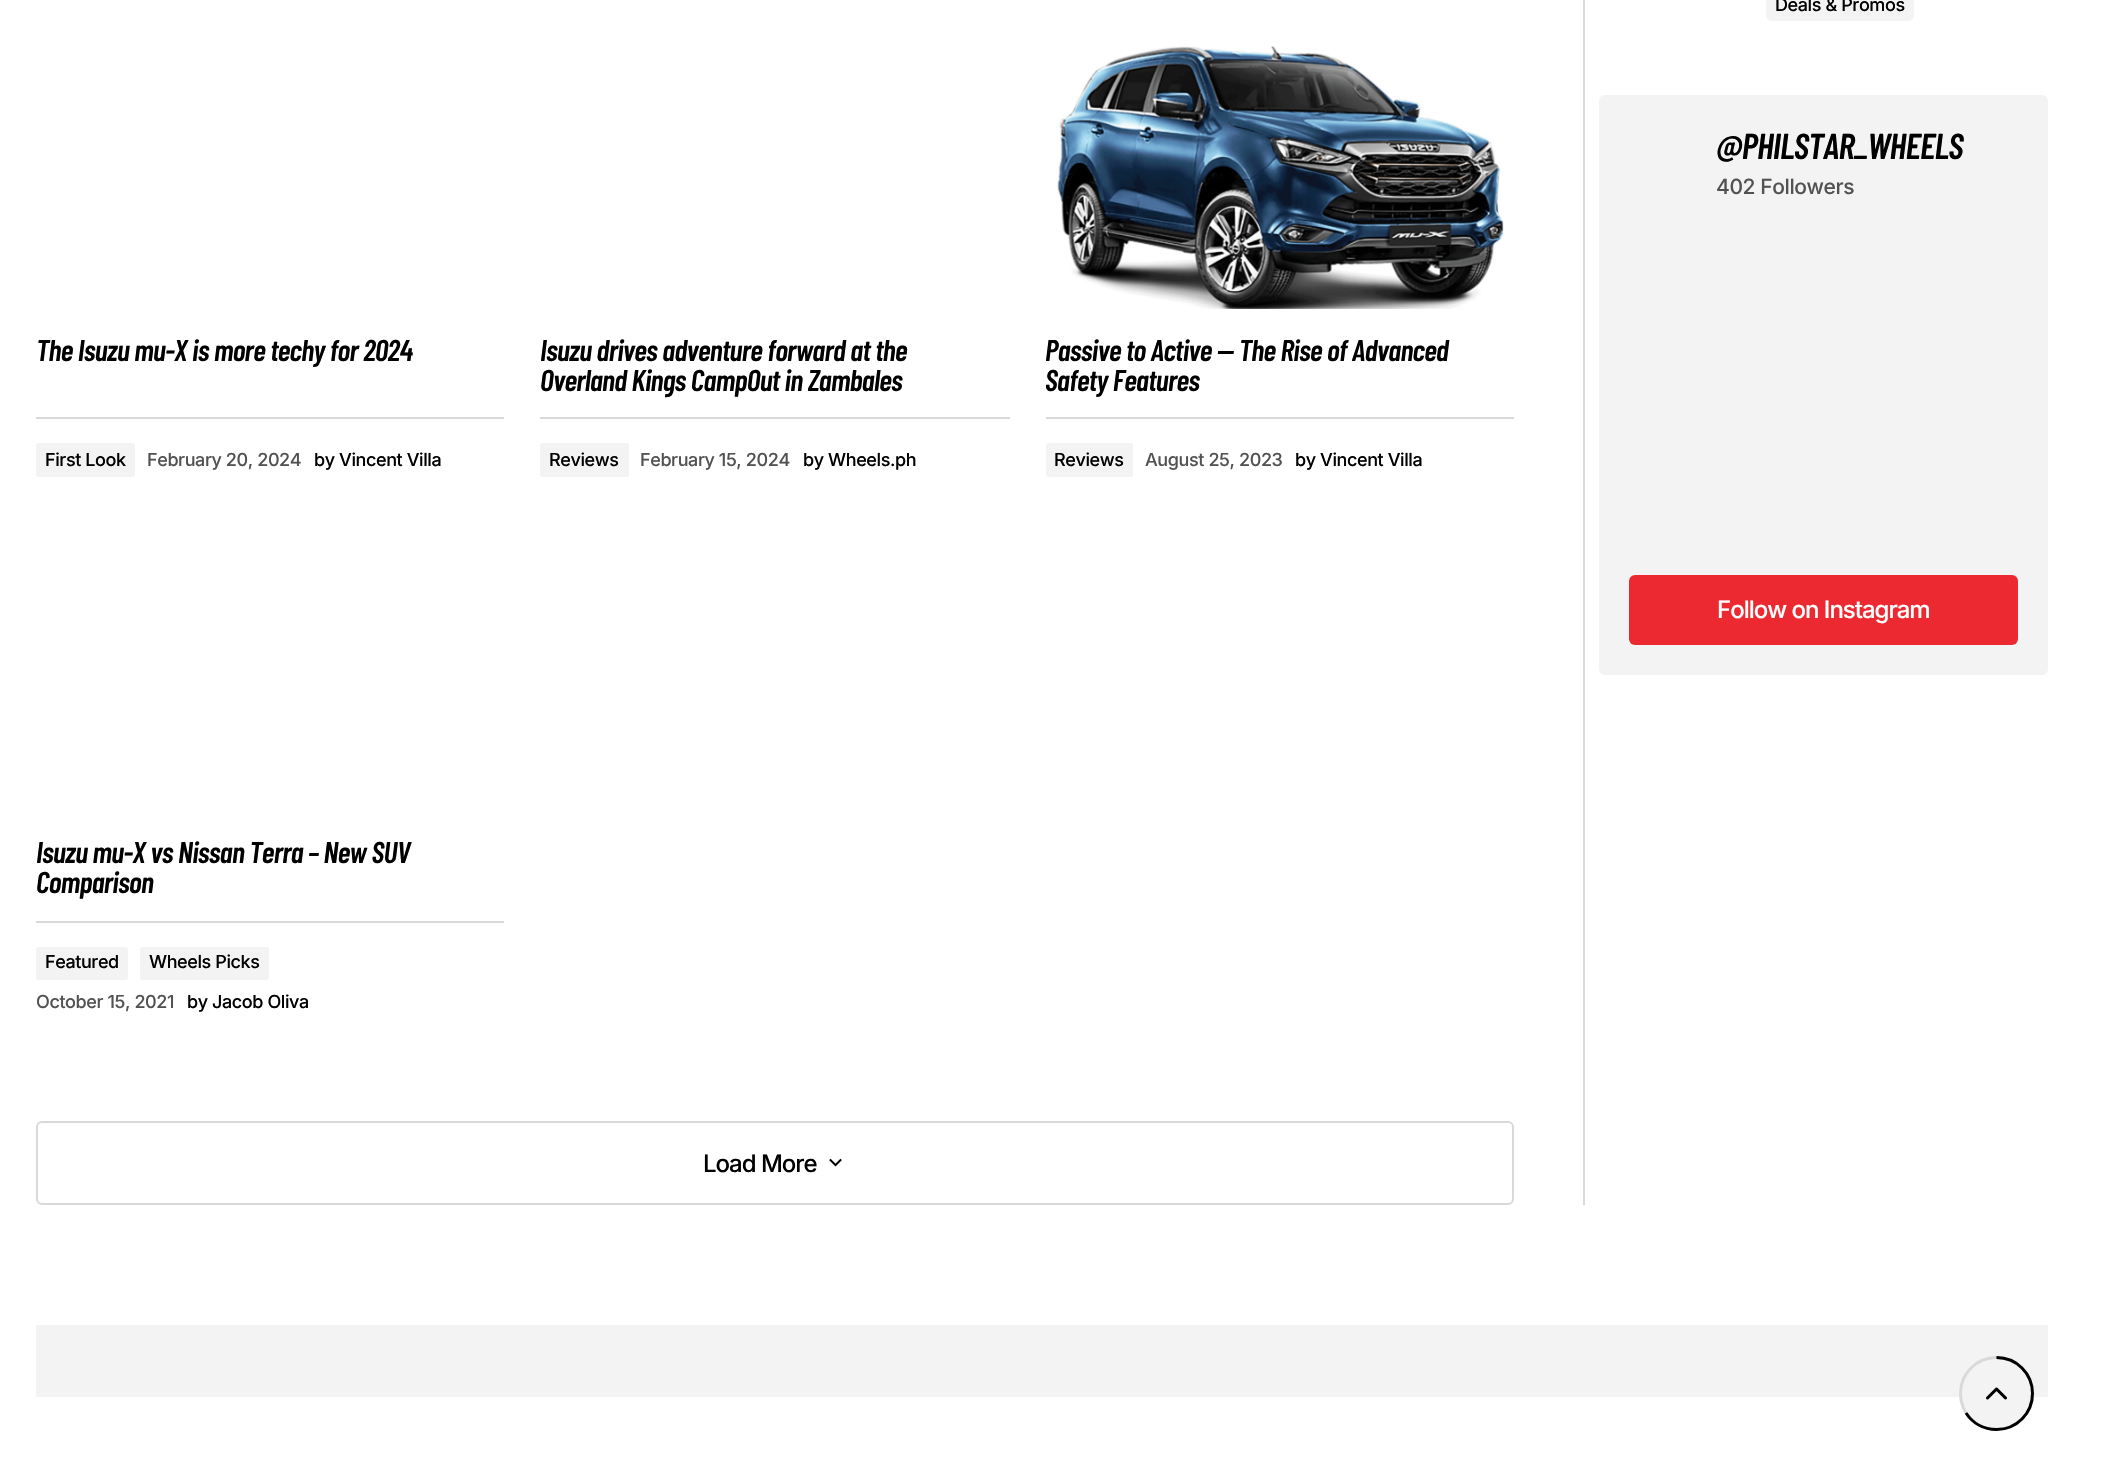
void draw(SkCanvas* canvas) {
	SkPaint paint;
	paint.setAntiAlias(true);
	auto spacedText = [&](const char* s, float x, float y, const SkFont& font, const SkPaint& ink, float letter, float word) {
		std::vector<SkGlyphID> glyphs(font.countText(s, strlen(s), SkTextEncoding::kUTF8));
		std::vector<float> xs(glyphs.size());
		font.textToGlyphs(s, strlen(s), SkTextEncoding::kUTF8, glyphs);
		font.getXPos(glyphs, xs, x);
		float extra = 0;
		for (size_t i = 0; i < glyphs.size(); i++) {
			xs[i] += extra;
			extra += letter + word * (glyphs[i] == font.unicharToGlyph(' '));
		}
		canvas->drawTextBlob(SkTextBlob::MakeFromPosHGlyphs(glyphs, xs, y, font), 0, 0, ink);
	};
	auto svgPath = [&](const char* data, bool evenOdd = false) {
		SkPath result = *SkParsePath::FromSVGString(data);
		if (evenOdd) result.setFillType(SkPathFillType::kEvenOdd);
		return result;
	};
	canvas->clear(0xffffffff);
	SkFont f1(fontMgr->matchFamilyStyle("Barlow Condensed", SkFontStyle(600, SkFontStyle::kNormal_Width, SkFontStyle::kItalic_Slant)), 30);
	f1.setSubpixel(true);
	paint.setColor(0xff000000);
	spacedText("The Isuzu mu-X is more techy for 2024", 36, 361, f1, paint, -0.6, 0);
	paint.setColor(0xffd9d9d9);
	canvas->drawRect(SkRect::MakeXYWH(36, 417, 468, 2), paint);
	paint.setColor(0xfff3f3f3);
	canvas->drawRoundRect(SkRect::MakeXYWH(36, 443, 99, 34), 3, 3, paint);
	SkFont f2(fontMgr->matchFamilyStyle("Inter", SkFontStyle(500, SkFontStyle::kNormal_Width, SkFontStyle::kUpright_Slant)), 18);
	f2.setSubpixel(true);
	paint.setColor(0xff000000);
	spacedText("First Look", 45, 466, f2, paint, -0.4, 0);
	paint.setColor(0xff525252);
	spacedText("February 20, 2024", 147, 466, f2, paint, -0.4, 0);
	paint.setColor(0xff000000);
	spacedText("by Vincent Villa", 314, 466, f2, paint, -0.4, 0);
	spacedText("Isuzu drives adventure forward at the", 540, 361, f1, paint, -0.6, 0);
	spacedText("Overland Kings CampOut in Zambales", 540, 391, f1, paint, -0.6, 0);
	paint.setColor(0xffd9d9d9);
	canvas->drawRect(SkRect::MakeXYWH(540, 417, 470, 2), paint);
	paint.setColor(0xfff3f3f3);
	canvas->drawRoundRect(SkRect::MakeXYWH(540, 443, 89, 34), 3, 3, paint);
	paint.setColor(0xff000000);
	spacedText("Reviews", 549, 466, f2, paint, -0.4, 0);
	paint.setColor(0xff525252);
	spacedText("February 15, 2024", 640, 466, f2, paint, -0.4, 0);
	paint.setColor(0xff000000);
	spacedText("by Wheels.ph", 803, 466, f2, paint, -0.4, 0);
	canvas->drawImageRect(SkImages::DeferredFromEncodedData(SkData::MakeFromFileName("img1.png")), SkRect::MakeXYWH(1057, 46, 447, 263), SkSamplingOptions());
	spacedText("Passive to Active — The Rise of Advanced", 1045, 361, f1, paint, -0.6, 0);
	spacedText("Safety Features", 1045, 391, f1, paint, -0.6, 0);
	paint.setColor(0xffd9d9d9);
	canvas->drawRect(SkRect::MakeXYWH(1046, 417, 468, 2), paint);
	paint.setColor(0xfff3f3f3);
	canvas->drawRoundRect(SkRect::MakeXYWH(1046, 443, 87, 34), 3, 3, paint);
	paint.setColor(0xff000000);
	spacedText("Reviews", 1054, 466, f2, paint, -0.4, 0);
	paint.setColor(0xff525252);
	spacedText("August 25, 2023", 1145, 466, f2, paint, -0.4, 0);
	paint.setColor(0xff000000);
	spacedText("by Vincent Villa", 1295, 466, f2, paint, -0.4, 0);
	spacedText("Isuzu mu-X vs Nissan Terra – New SUV", 36, 863, f1, paint, -0.6, 0);
	spacedText("Comparison", 36, 893, f1, paint, -0.6, 0);
	paint.setColor(0xffd9d9d9);
	canvas->drawRect(SkRect::MakeXYWH(36, 921, 468, 2), paint);
	paint.setColor(0xfff3f3f3);
	canvas->drawRoundRect(SkRect::MakeXYWH(36, 947, 92, 33), 3, 3, paint);
	paint.setColor(0xff000000);
	spacedText("Featured", 45, 968, f2, paint, -0.4, 0);
	paint.setColor(0xfff3f3f3);
	canvas->drawRoundRect(SkRect::MakeXYWH(140, 947, 129, 33), 3, 3, paint);
	paint.setColor(0xff000000);
	spacedText("Wheels Picks", 149, 968, f2, paint, -0.4, 0);
	paint.setColor(0xff525252);
	spacedText("October 15, 2021", 36, 1008, f2, paint, -0.4, 0);
	paint.setColor(0xff000000);
	spacedText("by Jacob Oliva", 187, 1008, f2, paint, -0.4, 0);
	paint.setStroke(true);
	paint.setStrokeWidth(2);
	paint.setColor(0xffd9d9d9);
	canvas->drawRoundRect(SkRect::MakeXYWH(37, 1122, 1476, 82), 5, 5, paint);
	SkFont f3(fontMgr->matchFamilyStyle("Inter", SkFontStyle(500, SkFontStyle::kNormal_Width, SkFontStyle::kUpright_Slant)), 24);
	f3.setSubpixel(true);
	paint.setStroke(false);
	paint.setColor(0xff000000);
	spacedText("Load More", 703, 1172, f3, paint, -1, 0);
	canvas->drawImageRect(SkImages::DeferredFromEncodedData(SkData::MakeFromFileName("img2.png")), SkRect::MakeXYWH(829, 1158, 13, 9), SkSamplingOptions());
	paint.setColor(0xffd9d9d9);
	canvas->drawRect(SkRect::MakeXYWH(1583, 0, 2, 1205), paint);
	paint.setColor(0xfff3f3f3);
	canvas->drawRoundRect(SkRect::MakeXYWH(1766, -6, 148, 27), 6, 6, paint);
	paint.setColor(0xff000000);
	spacedText("Deals & Promos", 1775, 11, f2, paint, -0.4, 0);
	paint.setColor(0xfff3f3f3);
	canvas->drawRoundRect(SkRect::MakeXYWH(1599, 95, 449, 580), 6, 6, paint);
	SkFont f4(fontMgr->matchFamilyStyle("Barlow Condensed", SkFontStyle(600, SkFontStyle::kNormal_Width, SkFontStyle::kItalic_Slant)), 36);
	f4.setSubpixel(true);
	paint.setColor(0xff000000);
	spacedText("@PHILSTAR_WHEELS", 1716, 159, f4, paint, -0.75, 0);
	SkFont f5(fontMgr->matchFamilyStyle("Inter", SkFontStyle(500, SkFontStyle::kNormal_Width, SkFontStyle::kUpright_Slant)), 21);
	f5.setSubpixel(true);
	paint.setColor(0xff525252);
	spacedText("402 Followers", 1716, 194, f5, paint, -0.4, 0);
	paint.setColor(0xffec2931);
	canvas->drawRoundRect(SkRect::MakeXYWH(1629, 575, 389, 70), 6, 6, paint);
	paint.setColor(0xffffffff);
	spacedText("Follow on Instagram", 1717, 618, f3, paint, -1, 0);
	paint.setColor(0xfff3f3f3);
	canvas->drawRect(SkRect::MakeXYWH(36, 1325, 2012, 72), paint);
	canvas->drawCircle(1997, 1394, 36, paint);
	canvas->drawImageRect(SkImages::DeferredFromEncodedData(SkData::MakeFromFileName("img3.png")), SkRect::MakeXYWH(1986, 1387, 21, 13), SkSamplingOptions());
	paint.setStroke(true);
	paint.setStrokeWidth(3);
	paint.setColor(0xffd9d9d9);
	canvas->drawPath(svgPath("M1996.5 1357.5C2016.5 1357.5 2032.5 1373.5 2032.5 1393.5C2032.5 1413.5 2016.5 1429.5 1996.5 1429.5C1976.5 1429.5 1960.5 1413.5 1960.5 1393.5C1960.5 1373.5 1976.5 1357.5 1996.5 1357.5"), paint);
	paint.setColor(0xff000000);
	canvas->drawPath(svgPath("M1996.5 1357.5C2016.5 1357.5 2032.5 1373.5 2032.5 1393.5C2032.5 1413.5 2016.5 1429.5 1996.5 1429.5C1983.5 1429.5 1972.5 1423 1966 1413"), paint);
}
